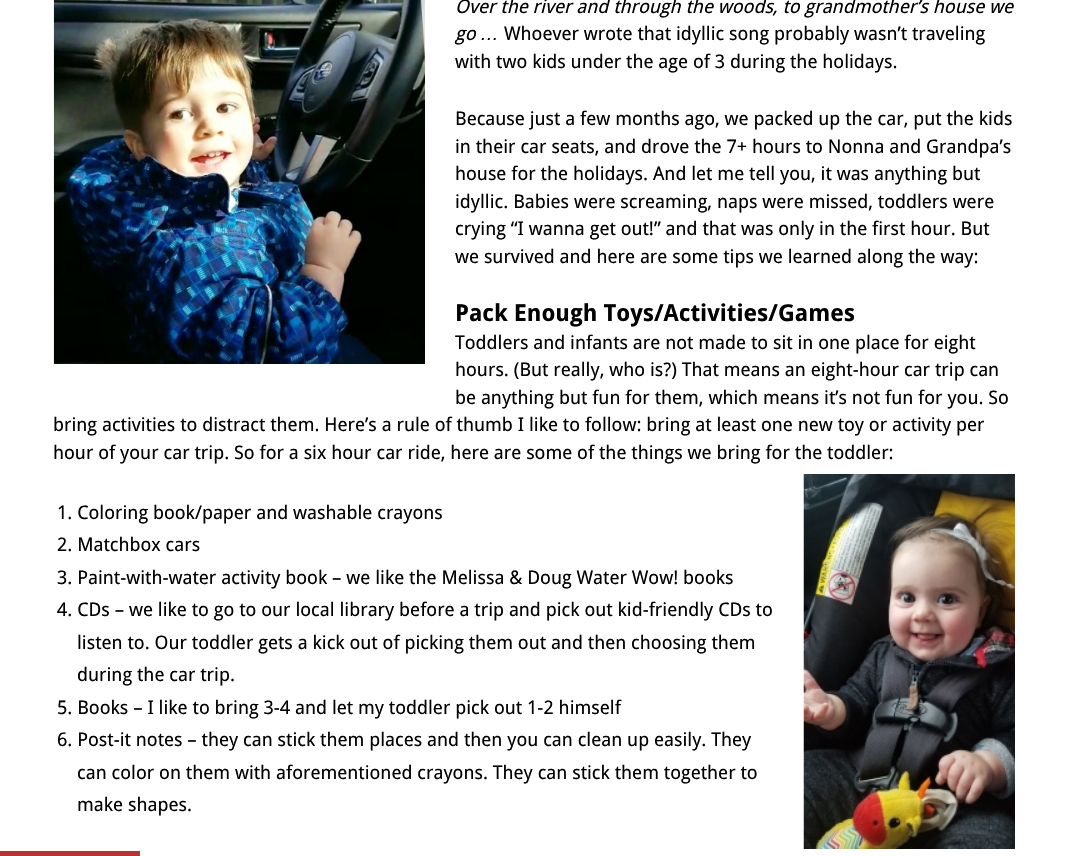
void draw(SkCanvas* canvas) {
	SkPaint paint;
	paint.setAntiAlias(true);
	canvas->clear(0xffffffff);
	canvas->drawImageRect(SkImages::DeferredFromEncodedData(SkData::MakeFromFileName("img1.png")), SkRect::MakeXYWH(53, 0, 372, 364), SkSamplingOptions());
	SkFont f1(fontMgr->matchFamilyStyle("Droid Sans", SkFontStyle::Italic()), 18.75);
	f1.setSubpixel(true);
	paint.setColor(0xff000000);
	canvas->drawString("Over the river and through the woods, to grandmother’s house we", 455, 13, f1, paint);
	canvas->drawString("go", 455, 40, f1, paint);
	SkFont f2(fontMgr->matchFamilyStyle("Liberation Sans", SkFontStyle::Italic()), 18.75);
	f2.setSubpixel(true);
	canvas->drawString("…", 480, 40, f2, paint);
	SkFont f3(fontMgr->matchFamilyStyle("Droid Sans", SkFontStyle::Normal()), 18.75);
	f3.setSubpixel(true);
	canvas->drawString("Whoever wrote that idyllic song probably wasn’t traveling", 504, 40, f3, paint);
	canvas->drawString("with two kids under the age of 3 during the holidays.", 455, 68, f3, paint);
	canvas->drawString("Because just a few months ago, we packed up the car, put the kids", 455, 125, f3, paint);
	canvas->drawString("in their car seats, and drove the 7+ hours to Nonna and Grandpa’s", 455, 153, f3, paint);
	canvas->drawString("house for the holidays. And let me tell you, it was anything but", 455, 180, f3, paint);
	canvas->drawString("idyllic. Babies were screaming, naps were missed, toddlers were", 455, 208, f3, paint);
	canvas->drawString("crying “I wanna get out!” and that was only in the first hour. But", 455, 235, f3, paint);
	canvas->drawString("we survived and here are some tips we learned along the way:", 455, 263, f3, paint);
	SkFont f4(fontMgr->matchFamilyStyle("Droid Sans", SkFontStyle::Bold()), 23.3);
	f4.setSubpixel(true);
	canvas->drawString("Pack Enough Toys/Activities/Games", 455, 321, f4, paint);
	canvas->drawString("Toddlers and infants are not made to sit in one place for eight", 455, 349, f3, paint);
	canvas->drawString("hours. (But really, who is?) That means an eight-hour car trip can", 455, 376, f3, paint);
	canvas->drawString("be anything but fun for them, which means it’s not fun for you. So", 455, 404, f3, paint);
	canvas->drawString("bring activities to distract them. Here’s a rule of thumb I like to follow: bring at least one new toy or activity per", 53, 431, f3, paint);
	canvas->drawString("hour of your car trip. So for a six hour car ride, here are some of the things we bring for the toddler:", 53, 459, f3, paint);
	canvas->drawImageRect(SkImages::DeferredFromEncodedData(SkData::MakeFromFileName("img2.png")), SkRect::MakeXYWH(803, 474, 212, 375), SkSamplingOptions());
	canvas->drawString("1. Coloring book/paper and washable crayons", 57, 519, f3, paint);
	canvas->drawString("2. Matchbox cars", 57, 551, f3, paint);
	canvas->drawString("3. Paint-with-water activity book – we like the Melissa & Doug Water Wow! books", 57, 584, f3, paint);
	canvas->drawString("4. CDs – we like to go to our local library before a trip and pick out kid-friendly CDs to", 57, 616, f3, paint);
	canvas->drawString("listen to. Our toddler gets a kick out of picking them out and then choosing them", 77, 649, f3, paint);
	canvas->drawString("during the car trip.", 77, 681, f3, paint);
	canvas->drawString("5. Books – I like to bring 3-4 and let my toddler pick out 1-2 himself", 57, 714, f3, paint);
	canvas->drawString("6. Post-it notes – they can stick them places and then you can clean up easily. They", 57, 746, f3, paint);
	canvas->drawString("can color on them with aforementioned crayons. They can stick them together to", 77, 779, f3, paint);
	canvas->drawString("make shapes.", 77, 811, f3, paint);
	paint.setColor(0xffbb3131);
	canvas->drawRect(SkRect::MakeXYWH(0, 851, 140, 5), paint);
}
